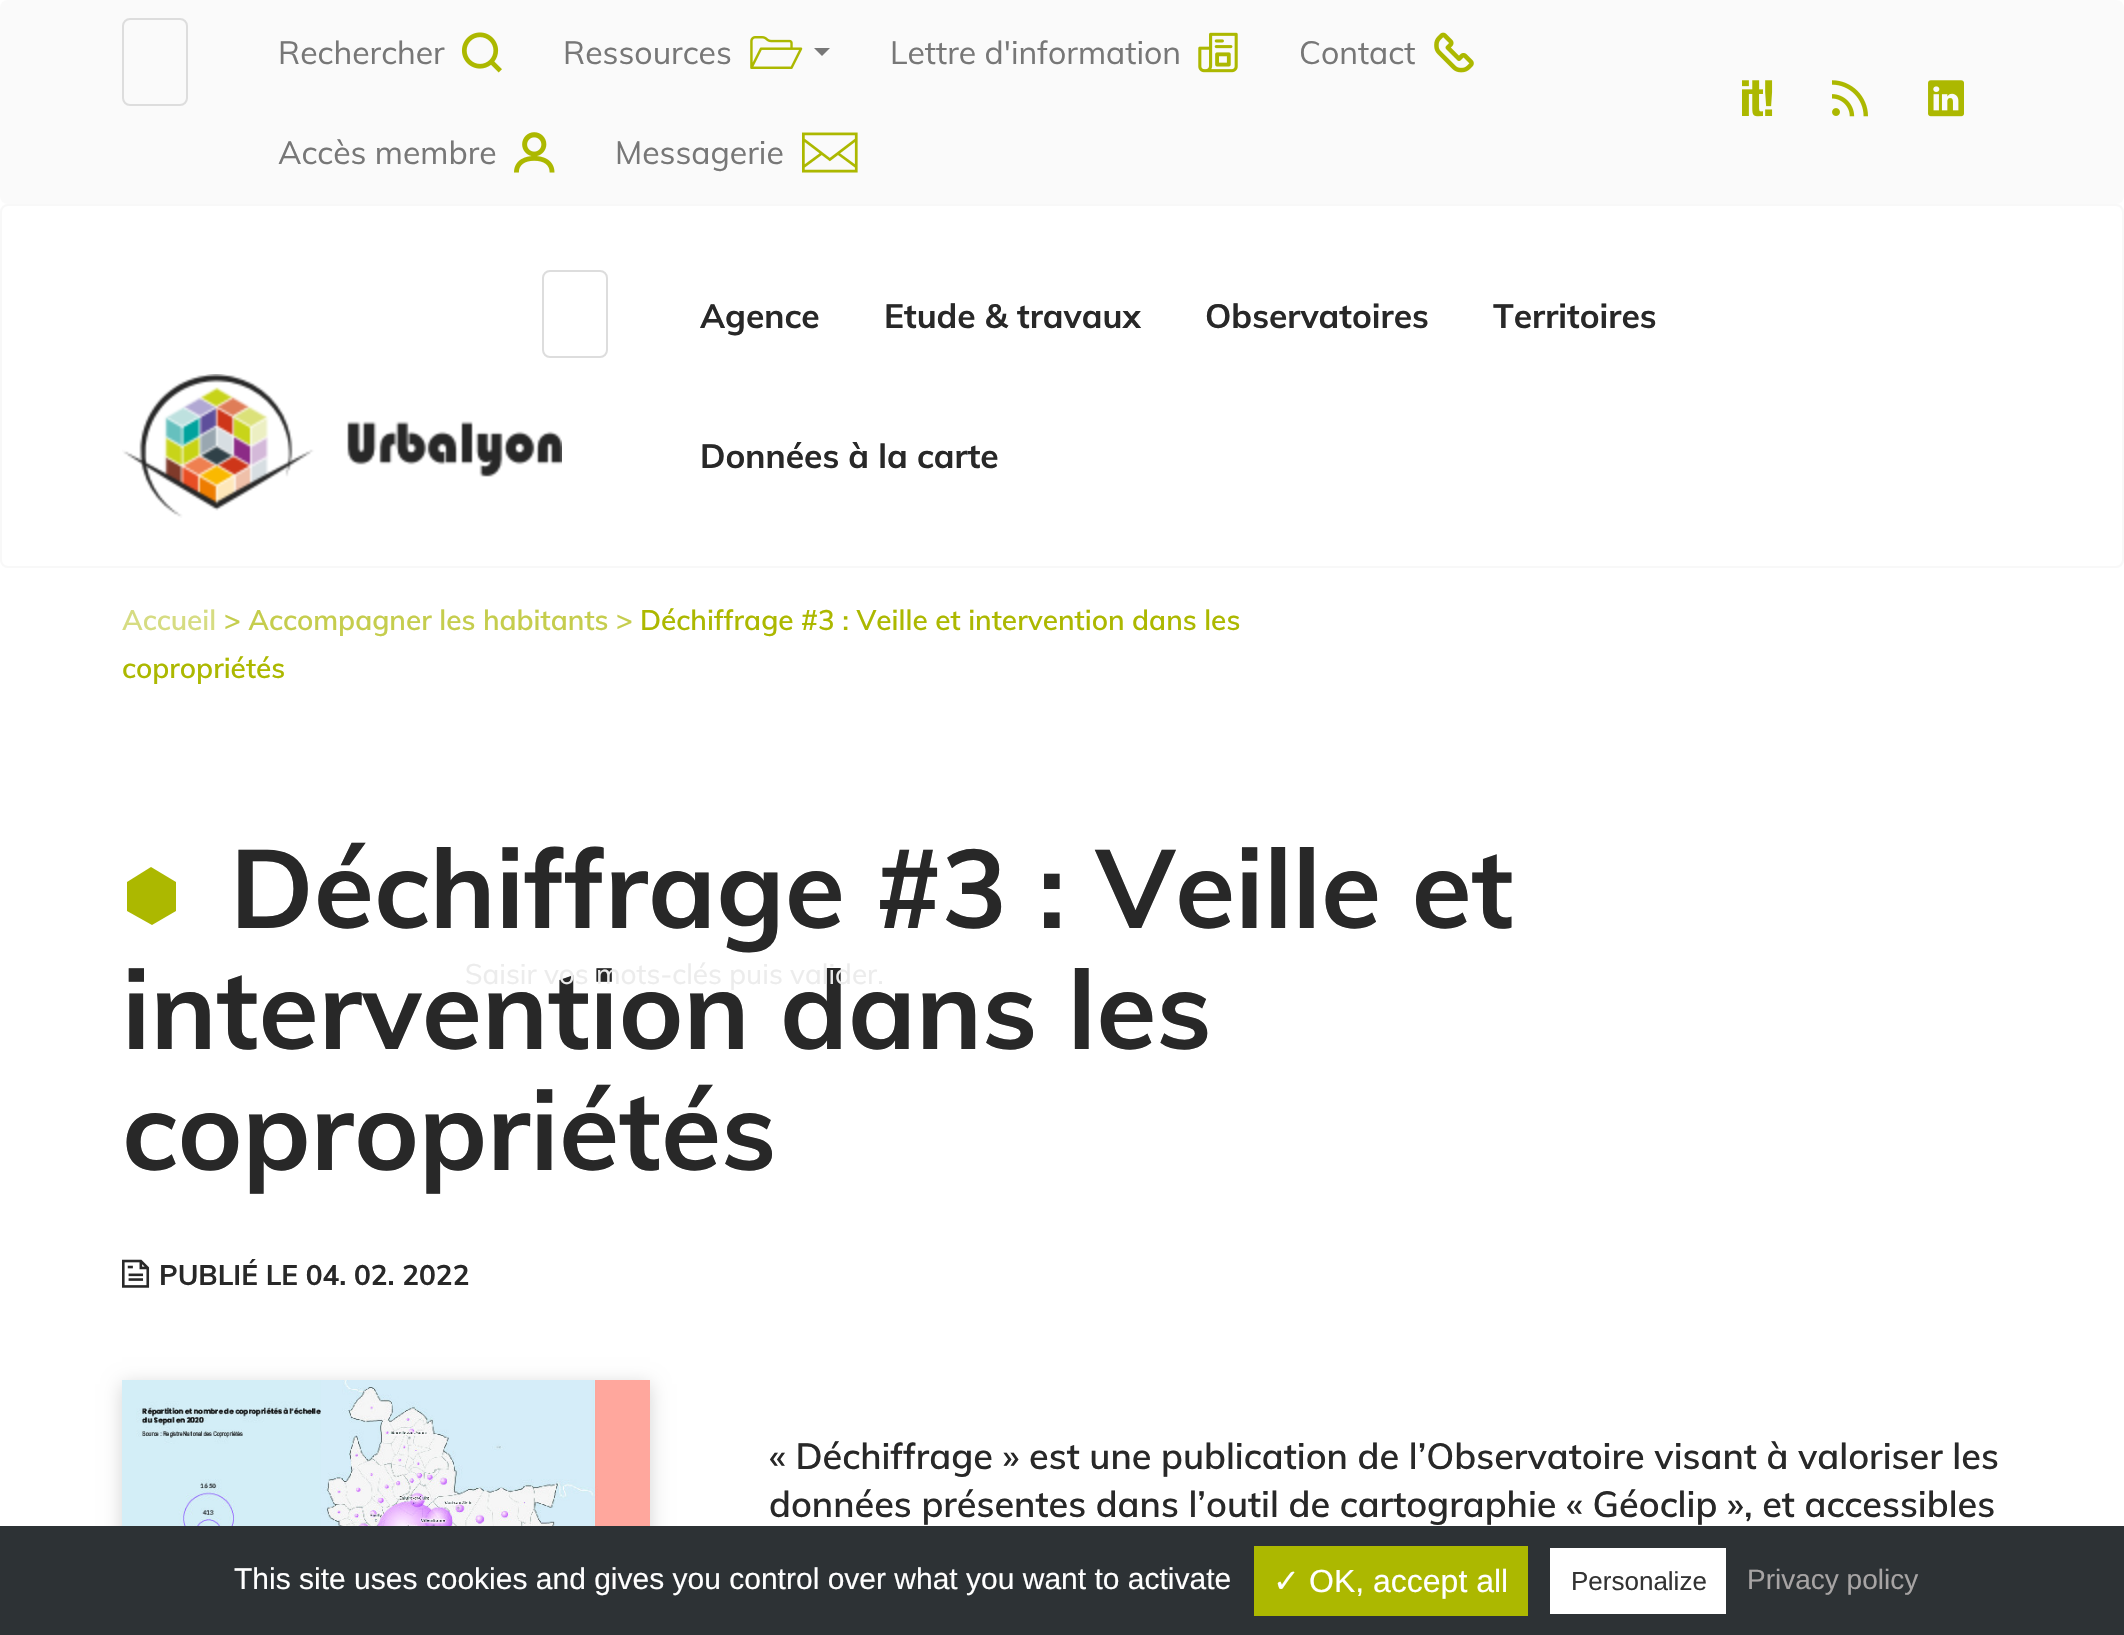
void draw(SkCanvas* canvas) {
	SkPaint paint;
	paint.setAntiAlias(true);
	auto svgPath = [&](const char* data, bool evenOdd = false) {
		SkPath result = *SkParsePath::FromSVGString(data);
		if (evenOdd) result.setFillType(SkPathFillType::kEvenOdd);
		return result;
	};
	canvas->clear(0xffffffff);
	paint.setColor(0xfffafafa);
	canvas->drawRoundRect(SkRect::MakeXYWH(0, 0, 2124, 204), 8, 8, paint);
	paint.setStroke(true);
	paint.setStrokeWidth(2);
	paint.setColor(0xffdddddd);
	canvas->drawRoundRect(SkRect::MakeXYWH(123, 19, 64, 86), 7, 7, paint);
	SkFont f1(fontMgr->matchFamilyStyle("Muli", SkFontStyle::Normal()), 32);
	f1.setSubpixel(true);
	paint.setStroke(false);
	paint.setColor(0xff777777);
	canvas->drawString("Rechercher", 278, 64, f1, paint);
	canvas->drawImageRect(SkImages::DeferredFromEncodedData(SkData::MakeFromFileName("img1.png")), SkRect::MakeXYWH(461, 32, 41, 41), SkSamplingOptions());
	canvas->drawString("Ressources", 563, 64, f1, paint);
	canvas->drawImageRect(SkImages::DeferredFromEncodedData(SkData::MakeFromFileName("img2.png")), SkRect::MakeXYWH(750, 36, 53, 33), SkSamplingOptions());
	canvas->drawPath(svgPath("M814 48H830L822 56Z"), paint);
	canvas->drawString("Lettre d'information", 890, 64, f1, paint);
	canvas->drawImageRect(SkImages::DeferredFromEncodedData(SkData::MakeFromFileName("img3.png")), SkRect::MakeXYWH(1198, 32, 40, 41), SkSamplingOptions());
	canvas->drawString("Contact", 1299, 64, f1, paint);
	canvas->drawImageRect(SkImages::DeferredFromEncodedData(SkData::MakeFromFileName("img4.png")), SkRect::MakeXYWH(1434, 32, 40, 41), SkSamplingOptions());
	canvas->drawString("Accès membre", 278, 164, f1, paint);
	canvas->drawImageRect(SkImages::DeferredFromEncodedData(SkData::MakeFromFileName("img5.png")), SkRect::MakeXYWH(514, 132, 41, 41), SkSamplingOptions());
	canvas->drawString("Messagerie", 615, 164, f1, paint);
	canvas->drawImageRect(SkImages::DeferredFromEncodedData(SkData::MakeFromFileName("img6.png")), SkRect::MakeXYWH(802, 132, 56, 41), SkSamplingOptions());
	canvas->drawImageRect(SkImages::DeferredFromEncodedData(SkData::MakeFromFileName("img7.png")), SkRect::MakeXYWH(1742, 80, 31, 37), SkSamplingOptions());
	canvas->drawImageRect(SkImages::DeferredFromEncodedData(SkData::MakeFromFileName("img8.png")), SkRect::MakeXYWH(1832, 80, 36, 37), SkSamplingOptions());
	canvas->drawImageRect(SkImages::DeferredFromEncodedData(SkData::MakeFromFileName("img9.png")), SkRect::MakeXYWH(1928, 80, 36, 37), SkSamplingOptions());
	paint.setStroke(true);
	paint.setColor(0xfff8f8f8);
	canvas->drawRoundRect(SkRect::MakeXYWH(1, 205, 2122, 362), 7, 7, paint);
	paint.setColor(0xffdddddd);
	canvas->drawRoundRect(SkRect::MakeXYWH(543, 271, 64, 86), 7, 7, paint);
	canvas->drawImageRect(SkImages::DeferredFromEncodedData(SkData::MakeFromFileName("img10.png")), SkRect::MakeXYWH(122, 374, 440, 144), SkSamplingOptions());
	SkFont f2(fontMgr->matchFamilyStyle("Muli", SkFontStyle::Bold()), 33.5);
	f2.setSubpixel(true);
	paint.setStroke(false);
	paint.setColor(0xff282828);
	canvas->drawString("Agence", 700, 328, f2, paint);
	canvas->drawString("Etude & travaux", 884, 328, f2, paint);
	canvas->drawString("Observatoires", 1205, 328, f2, paint);
	canvas->drawString("Territoires", 1493, 328, f2, paint);
	canvas->drawString("Données à la carte", 700, 468, f2, paint);
	SkFont f3(fontMgr->matchFamilyStyle("Muli", SkFontStyle(600, SkFontStyle::kNormal_Width, SkFontStyle::kUpright_Slant)), 28);
	f3.setSubpixel(true);
	paint.setColor(0xffd6dc82);
	canvas->drawString("Accueil", 122, 630, f3, paint);
	paint.setColor(0xffc5cd4d);
	canvas->drawString("> Accompagner les habitants >", 224, 630, f3, paint);
	paint.setColor(0xffacb800);
	canvas->drawString("Déchiffrage #3 : Veille et intervention dans les", 640, 630, f3, paint);
	canvas->drawString("copropriétés", 122, 678, f3, paint);
	canvas->drawPath(svgPath("M151 867L127 882V911L152 925L176 911V882Z"), paint);
	SkFont f4(fontMgr->matchFamilyStyle("Muli", SkFontStyle::Bold()), 110);
	f4.setSubpixel(true);
	paint.setColor(0xff282828);
	canvas->drawString("Déchiffrage #3 : Veille et", 230, 928, f4, paint);
	canvas->drawString("intervention dans les", 122, 1049, f4, paint);
	canvas->drawString("copropriétés", 122, 1170, f4, paint);
	canvas->drawImageRect(SkImages::DeferredFromEncodedData(SkData::MakeFromFileName("img11.png")), SkRect::MakeXYWH(122, 1259, 28, 29), SkSamplingOptions());
	SkFont f5(fontMgr->matchFamilyStyle("Muli", SkFontStyle::Bold()), 28);
	f5.setSubpixel(true);
	canvas->drawString("PUBLIÉ LE 04. 02. 2022", 159, 1285, f5, paint);
	paint.setColor(0x2b000000);
	paint.setMaskFilter(SkMaskFilter::MakeBlur(kNormal_SkBlurStyle, 9));
	canvas->drawRect(SkRect::MakeXYWH(122, 1384, 528, 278), paint);
	paint.setMaskFilter(nullptr);
	canvas->drawImageRect(SkImages::DeferredFromEncodedData(SkData::MakeFromFileName("img12.png")), SkRect::MakeXYWH(122, 1380, 528, 146), SkSamplingOptions());
	SkFont f6(fontMgr->matchFamilyStyle("Muli", SkFontStyle(600, SkFontStyle::kNormal_Width, SkFontStyle::kUpright_Slant)), 36);
	f6.setSubpixel(true);
	paint.setColor(0xff282828);
	canvas->drawString("« Déchiffrage » est une publication de l’Observatoire visant à valoriser les", 769, 1469, f6, paint);
	canvas->drawString("données présentes dans l’outil de cartographie « Géoclip », et accessibles", 769, 1517, f6, paint);
	SkFont f7(fontMgr->matchFamilyStyle("Muli", SkFontStyle::Normal()), 28);
	f7.setSubpixel(true);
	paint.setColor(0xffececec);
	canvas->drawString("Saisir vos mots-clés puis valider.", 465, 984, f7, paint);
	paint.setColor(0xff2d3235);
	canvas->drawRect(SkRect::MakeXYWH(0, 1526, 2124, 109), paint);
	SkFont f8(fontMgr->matchFamilyStyle("Liberation Sans", SkFontStyle::Normal()), 30);
	f8.setSubpixel(true);
	paint.setColor(0xffffffff);
	canvas->drawString("This site uses cookies and gives you control over what you want to activate", 234, 1589, f8, paint);
	paint.setColor(0xffacb800);
	canvas->drawRect(SkRect::MakeXYWH(1254, 1546, 274, 70), paint);
	SkFont f9(fontMgr->matchFamilyStyle("DejaVu Sans", SkFontStyle::Normal()), 32);
	f9.setSubpixel(true);
	paint.setColor(0xffffffff);
	canvas->drawString("✓", 1273, 1592, f9, paint);
	SkFont f10(fontMgr->matchFamilyStyle("Liberation Sans", SkFontStyle::Normal()), 32);
	f10.setSubpixel(true);
	canvas->drawString("OK, accept all", 1309, 1592, f10, paint);
	canvas->drawRect(SkRect::MakeXYWH(1550, 1548, 176, 66), paint);
	SkFont f11(fontMgr->matchFamilyStyle("Liberation Sans", SkFontStyle::Normal()), 26);
	f11.setSubpixel(true);
	paint.setColor(0xff333333);
	canvas->drawString("Personalize", 1571, 1590, f11, paint);
	SkFont f12(fontMgr->matchFamilyStyle("Liberation Sans", SkFontStyle::Normal()), 28);
	f12.setSubpixel(true);
	paint.setColor(0xffa7a4a4);
	canvas->drawString("Privacy policy", 1747, 1589, f12, paint);
}
